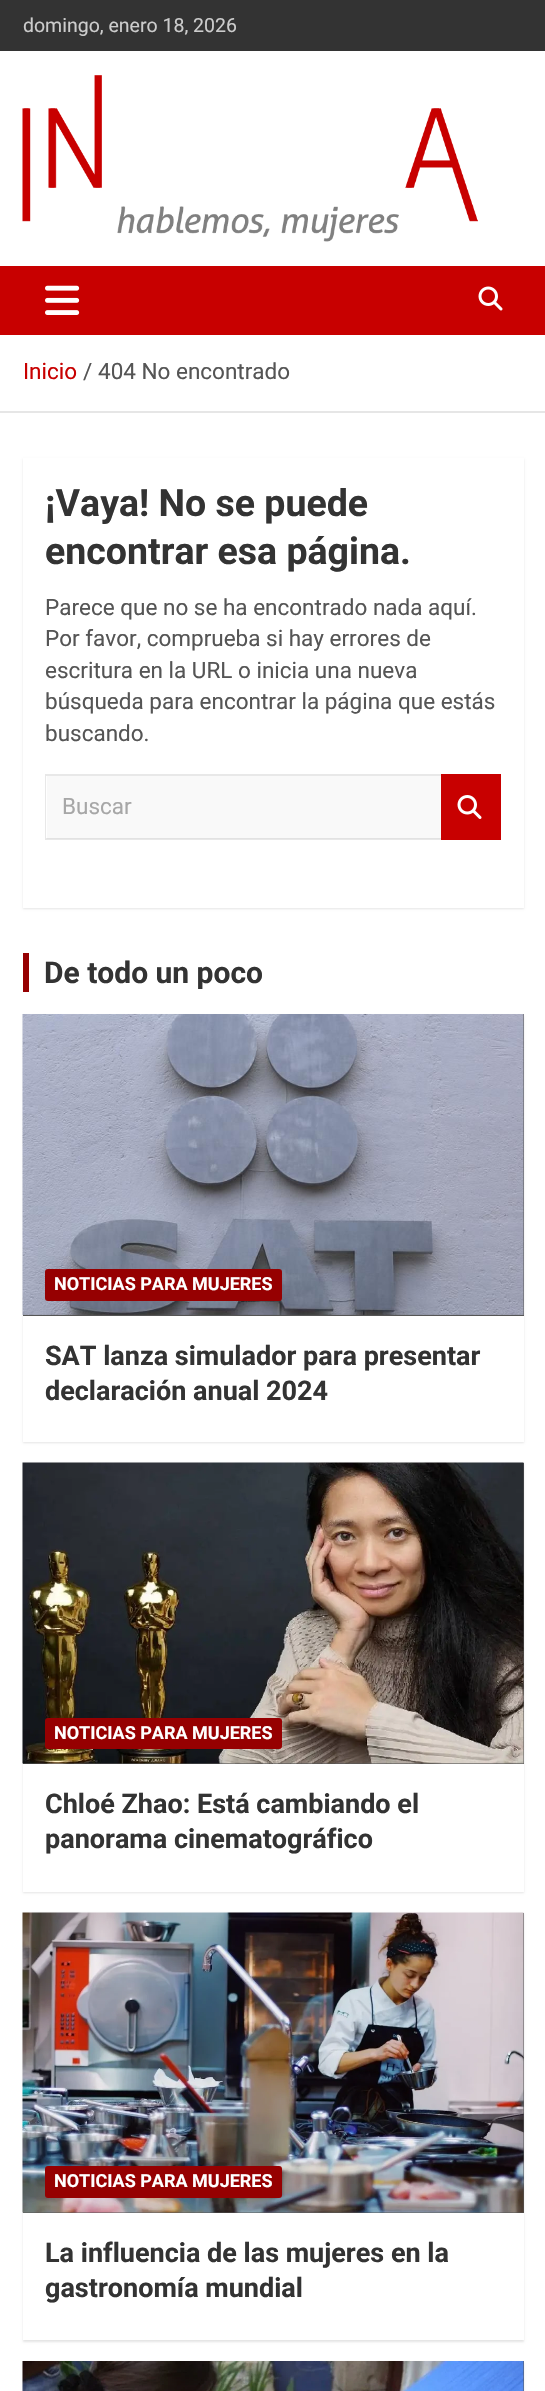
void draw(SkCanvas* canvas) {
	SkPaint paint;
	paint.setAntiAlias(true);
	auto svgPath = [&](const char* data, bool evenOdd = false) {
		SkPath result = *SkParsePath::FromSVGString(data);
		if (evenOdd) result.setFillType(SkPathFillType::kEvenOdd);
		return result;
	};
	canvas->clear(0xffffffff);
	paint.setColor(0xff333333);
	canvas->drawRect(SkRect::MakeXYWH(0, 0, 545, 51), paint);
	SkFont f1(fontMgr->matchFamilyStyle("Roboto", SkFontStyle::Normal()), 19.5);
	f1.setSubpixel(true);
	paint.setColor(0xffcccccc);
	canvas->drawString("domingo, enero 18, 2026", 23, 32, f1, paint);
	canvas->drawImageRect(SkImages::DeferredFromEncodedData(SkData::MakeFromFileName("img1.png")), SkRect::MakeXYWH(22, 75, 456, 167), SkSamplingOptions());
	paint.setColor(0xffc80000);
	canvas->drawRect(SkRect::MakeXYWH(0, 266, 545, 69), paint);
	canvas->drawImageRect(SkImages::DeferredFromEncodedData(SkData::MakeFromFileName("img2.png")), SkRect::MakeXYWH(45, 285, 35, 30), SkSamplingOptions());
	canvas->drawImageRect(SkImages::DeferredFromEncodedData(SkData::MakeFromFileName("img3.png")), SkRect::MakeXYWH(478, 286, 25, 25), SkSamplingOptions());
	paint.setColor(0xffe6e6e6);
	canvas->drawRect(SkRect::MakeXYWH(0, 411, 545, 2), paint);
	SkFont f2(fontMgr->matchFamilyStyle("Roboto", SkFontStyle::Normal()), 22.5);
	f2.setSubpixel(true);
	paint.setColor(0xffc80000);
	canvas->drawString("Inicio", 23, 379, f2, paint);
	paint.setColor(0xff555555);
	canvas->drawString("/", 83, 379, f2, paint);
	canvas->drawString("404 No encontrado", 98, 379, f2, paint);
	paint.setColor(0x1a000000);
	paint.setMaskFilter(SkMaskFilter::MakeBlur(kNormal_SkBlurStyle, 1));
	canvas->drawRect(SkRect::MakeXYWH(23, 459, 501, 450), paint);
	paint.setMaskFilter(nullptr);
	paint.setColor(0xffffffff);
	canvas->drawRect(SkRect::MakeXYWH(23, 458, 501, 450), paint);
	SkFont f3(fontMgr->matchFamilyStyle("Roboto", SkFontStyle::Bold()), 37.5);
	f3.setSubpixel(true);
	paint.setColor(0xff333333);
	canvas->drawString("¡Vaya! No se puede", 45, 516, f3, paint);
	canvas->drawString("encontrar esa página.", 45, 564, f3, paint);
	paint.setColor(0xff555555);
	canvas->drawString("Parece que no se ha encontrado nada aquí.", 45, 615, f2, paint);
	canvas->drawString("Por favor, comprueba si hay errores de", 45, 646, f2, paint);
	canvas->drawString("escritura en la URL o inicia una nueva", 45, 678, f2, paint);
	canvas->drawString("búsqueda para encontrar la página que estás", 45, 709, f2, paint);
	canvas->drawString("buscando.", 45, 741, f2, paint);
	paint.setColor(0xfff9f9f9);
	canvas->drawRect(SkRect::MakeXYWH(47, 776, 394, 63), paint);
	paint.setColor(0xffe8e8e8);
	canvas->drawPath(svgPath("M45 774H441V776H46Z"), paint);
	paint.setColor(0x17000000);
	canvas->drawPath(svgPath("M441 840H45L46 838H441Z"), paint);
	canvas->drawPath(svgPath("M45 840V774L46 776V838Z"), paint);
	paint.setColor(0xffa7a7a7);
	canvas->drawString("Buscar", 62, 814, f2, paint);
	paint.setColor(0xffc80000);
	canvas->drawRect(SkRect::MakeXYWH(441, 774, 60, 66), paint);
	canvas->drawImageRect(SkImages::DeferredFromEncodedData(SkData::MakeFromFileName("img4.png")), SkRect::MakeXYWH(457, 795, 25, 24), SkSamplingOptions());
	paint.setColor(0xff960001);
	canvas->drawRect(SkRect::MakeXYWH(23, 953, 6, 39), paint);
	SkFont f4(fontMgr->matchFamilyStyle("Roboto", SkFontStyle::Bold()), 30);
	f4.setSubpixel(true);
	paint.setColor(0xff333333);
	canvas->drawString("De todo un poco", 44, 983, f4, paint);
	paint.setColor(0x1a000000);
	paint.setMaskFilter(SkMaskFilter::MakeBlur(kNormal_SkBlurStyle, 1));
	canvas->drawRect(SkRect::MakeXYWH(23, 1016, 501, 427), paint);
	paint.setMaskFilter(nullptr);
	paint.setColor(0xffffffff);
	canvas->drawRect(SkRect::MakeXYWH(23, 1316, 501, 126), paint);
	paint.setColor(0xff555555);
	canvas->drawRect(SkRect::MakeXYWH(23, 1014, 501, 302), paint);
	canvas->drawImageRect(SkImages::DeferredFromEncodedData(SkData::MakeFromFileName("img5.png")), SkRect::MakeXYWH(22, 1014, 502, 301), SkSamplingOptions());
	paint.setColor(0xff960001);
	canvas->drawRoundRect(SkRect::MakeXYWH(45, 1269, 237, 32), 3, 3, paint);
	SkFont f5(fontMgr->matchFamilyStyle("Roboto", SkFontStyle::Bold()), 18);
	f5.setSubpixel(true);
	paint.setColor(0xffffffff);
	canvas->drawString("NOTICIAS PARA MUJERES", 54, 1290, f5, paint);
	SkFont f6(fontMgr->matchFamilyStyle("Roboto", SkFontStyle::Bold()), 27);
	f6.setSubpixel(true);
	paint.setColor(0xff333333);
	canvas->drawString("SAT lanza simulador para presentar", 45, 1365, f6, paint);
	canvas->drawString("declaración anual 2024", 45, 1400, f6, paint);
	paint.setColor(0x1a000000);
	paint.setMaskFilter(SkMaskFilter::MakeBlur(kNormal_SkBlurStyle, 1));
	canvas->drawRect(SkRect::MakeXYWH(23, 1464, 501, 429), paint);
	paint.setMaskFilter(nullptr);
	paint.setColor(0xffffffff);
	canvas->drawRect(SkRect::MakeXYWH(23, 1764, 501, 128), paint);
	paint.setColor(0xff555555);
	canvas->drawRect(SkRect::MakeXYWH(23, 1463, 501, 301), paint);
	canvas->drawImageRect(SkImages::DeferredFromEncodedData(SkData::MakeFromFileName("img6.png")), SkRect::MakeXYWH(22, 1462, 502, 302), SkSamplingOptions());
	paint.setColor(0xff960001);
	canvas->drawRoundRect(SkRect::MakeXYWH(45, 1718, 237, 31), 3, 3, paint);
	paint.setColor(0xffffffff);
	canvas->drawString("NOTICIAS PARA MUJERES", 54, 1739, f5, paint);
	paint.setColor(0xff333333);
	canvas->drawString("Chloé Zhao: Está cambiando el", 45, 1813, f6, paint);
	canvas->drawString("panorama cinematográfico", 45, 1848, f6, paint);
	paint.setColor(0x1a000000);
	paint.setMaskFilter(SkMaskFilter::MakeBlur(kNormal_SkBlurStyle, 1));
	canvas->drawRect(SkRect::MakeXYWH(23, 1914, 501, 428), paint);
	paint.setMaskFilter(nullptr);
	paint.setColor(0xffffffff);
	canvas->drawRect(SkRect::MakeXYWH(23, 2213, 501, 127), paint);
	paint.setColor(0xff555555);
	canvas->drawRect(SkRect::MakeXYWH(23, 1913, 501, 300), paint);
	canvas->drawImageRect(SkImages::DeferredFromEncodedData(SkData::MakeFromFileName("img7.png")), SkRect::MakeXYWH(22, 1912, 502, 301), SkSamplingOptions());
	paint.setColor(0xff960001);
	canvas->drawRoundRect(SkRect::MakeXYWH(45, 2166, 237, 32), 3, 3, paint);
	paint.setColor(0xffffffff);
	canvas->drawString("NOTICIAS PARA MUJERES", 54, 2187, f5, paint);
	paint.setColor(0xff333333);
	canvas->drawString("La influencia de las mujeres en la", 45, 2262, f6, paint);
	canvas->drawString("gastronomía mundial", 45, 2297, f6, paint);
	paint.setColor(0x1a000000);
	paint.setMaskFilter(SkMaskFilter::MakeBlur(kNormal_SkBlurStyle, 1));
	canvas->drawRect(SkRect::MakeXYWH(23, 2363, 501, 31), paint);
	paint.setMaskFilter(nullptr);
	paint.setColor(0xff555555);
	canvas->drawRect(SkRect::MakeXYWH(523, 2361, 1, 30), paint);
	canvas->drawImageRect(SkImages::DeferredFromEncodedData(SkData::MakeFromFileName("img8.png")), SkRect::MakeXYWH(22, 2361, 502, 30), SkSamplingOptions());
}
